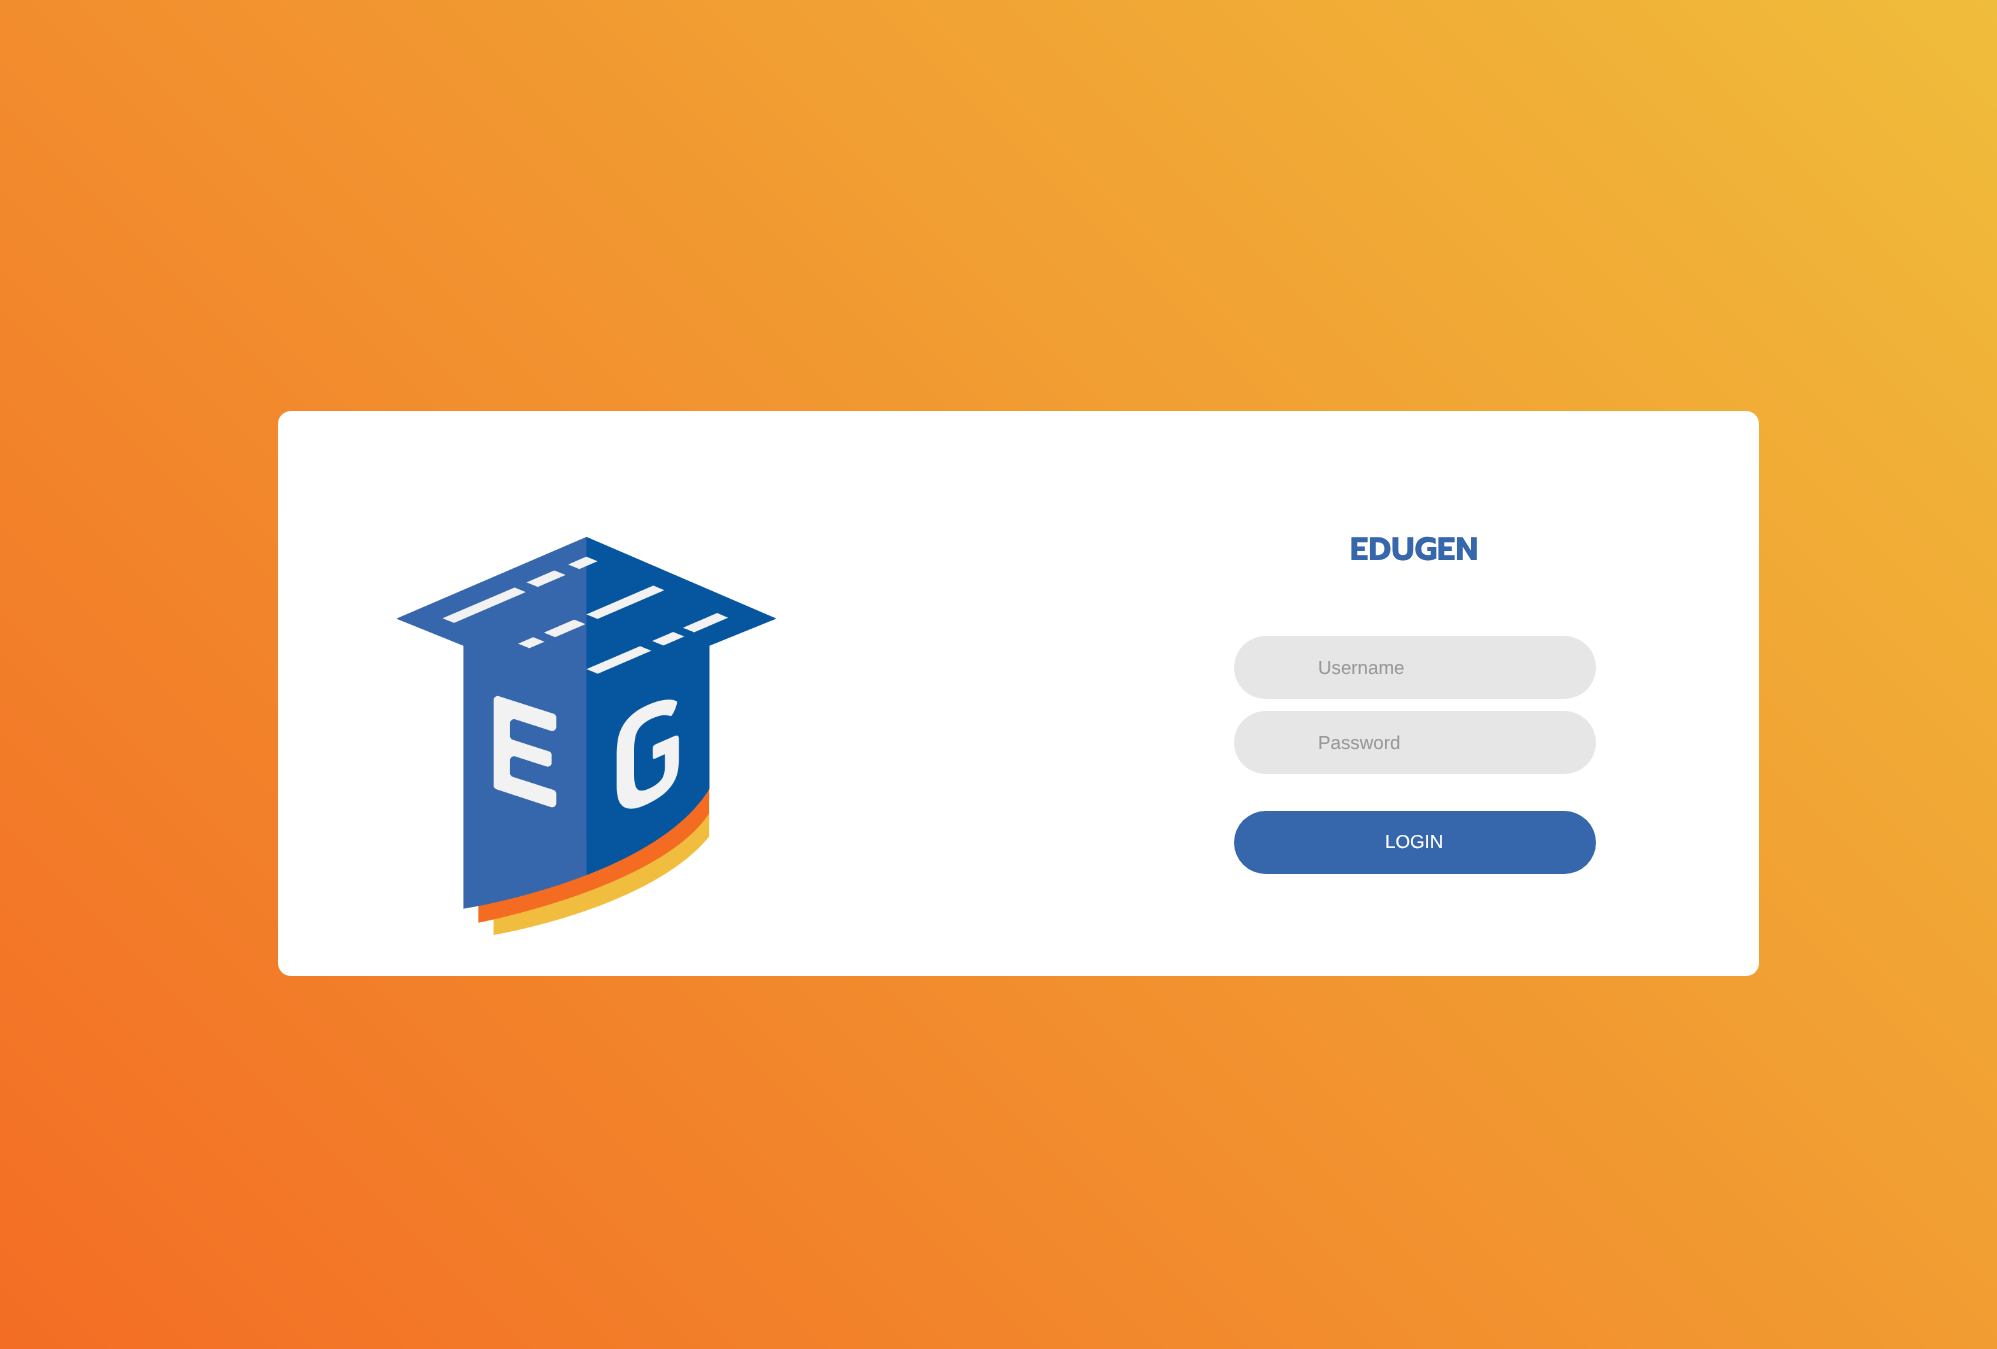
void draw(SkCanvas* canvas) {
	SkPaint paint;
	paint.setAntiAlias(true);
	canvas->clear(0xffffffff);
	{
		const SkColor colors[] = {0xfff0bd3b, 0xfff36c24};
		const float stops[] = {0, 1};
		const SkPoint ends[] = {{1873, -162}, {162, 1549}};
		paint.setShader(SkGradientShader::MakeLinear(ends, colors, stops, 2, SkTileMode::kClamp));
		paint.setAlpha(255);
	}
	canvas->drawRect(SkRect::MakeXYWH(0, 0, 1997, 1349), paint);
	paint.setShader(nullptr);
	paint.setColor(0xffffffff);
	canvas->drawRoundRect(SkRect::MakeXYWH(278, 411, 1481, 565), 13, 13, paint);
	canvas->drawImageRect(SkImages::DeferredFromEncodedData(SkData::MakeFromFileName("img1.png")), SkRect::MakeXYWH(396, 536, 381, 399), SkSamplingOptions());
	SkFont f1(fontMgr->matchFamilyStyle("Prompt", SkFontStyle::Bold()), 32.5);
	f1.setSubpixel(true);
	paint.setColor(0xff3667ac);
	canvas->drawString("EDUGEN", 1350, 560, f1, paint);
	paint.setColor(0xffe6e6e6);
	canvas->drawRoundRect(SkRect::MakeXYWH(1234, 636, 362, 63), 31.5, 31.5, paint);
	SkFont f2(fontMgr->matchFamilyStyle("Liberation Sans", SkFontStyle::Normal()), 18.75);
	f2.setSubpixel(true);
	paint.setColor(0xff999999);
	canvas->drawString("Username", 1318, 674, f2, paint);
	paint.setColor(0xffe6e6e6);
	canvas->drawRoundRect(SkRect::MakeXYWH(1234, 711, 362, 63), 31.5, 31.5, paint);
	paint.setColor(0xff999999);
	canvas->drawString("Password", 1318, 749, f2, paint);
	paint.setColor(0xff3667ac);
	canvas->drawRoundRect(SkRect::MakeXYWH(1234, 811, 362, 63), 31.5, 31.5, paint);
	paint.setColor(0xffffffff);
	canvas->drawString("LOGIN", 1385, 848, f2, paint);
}
